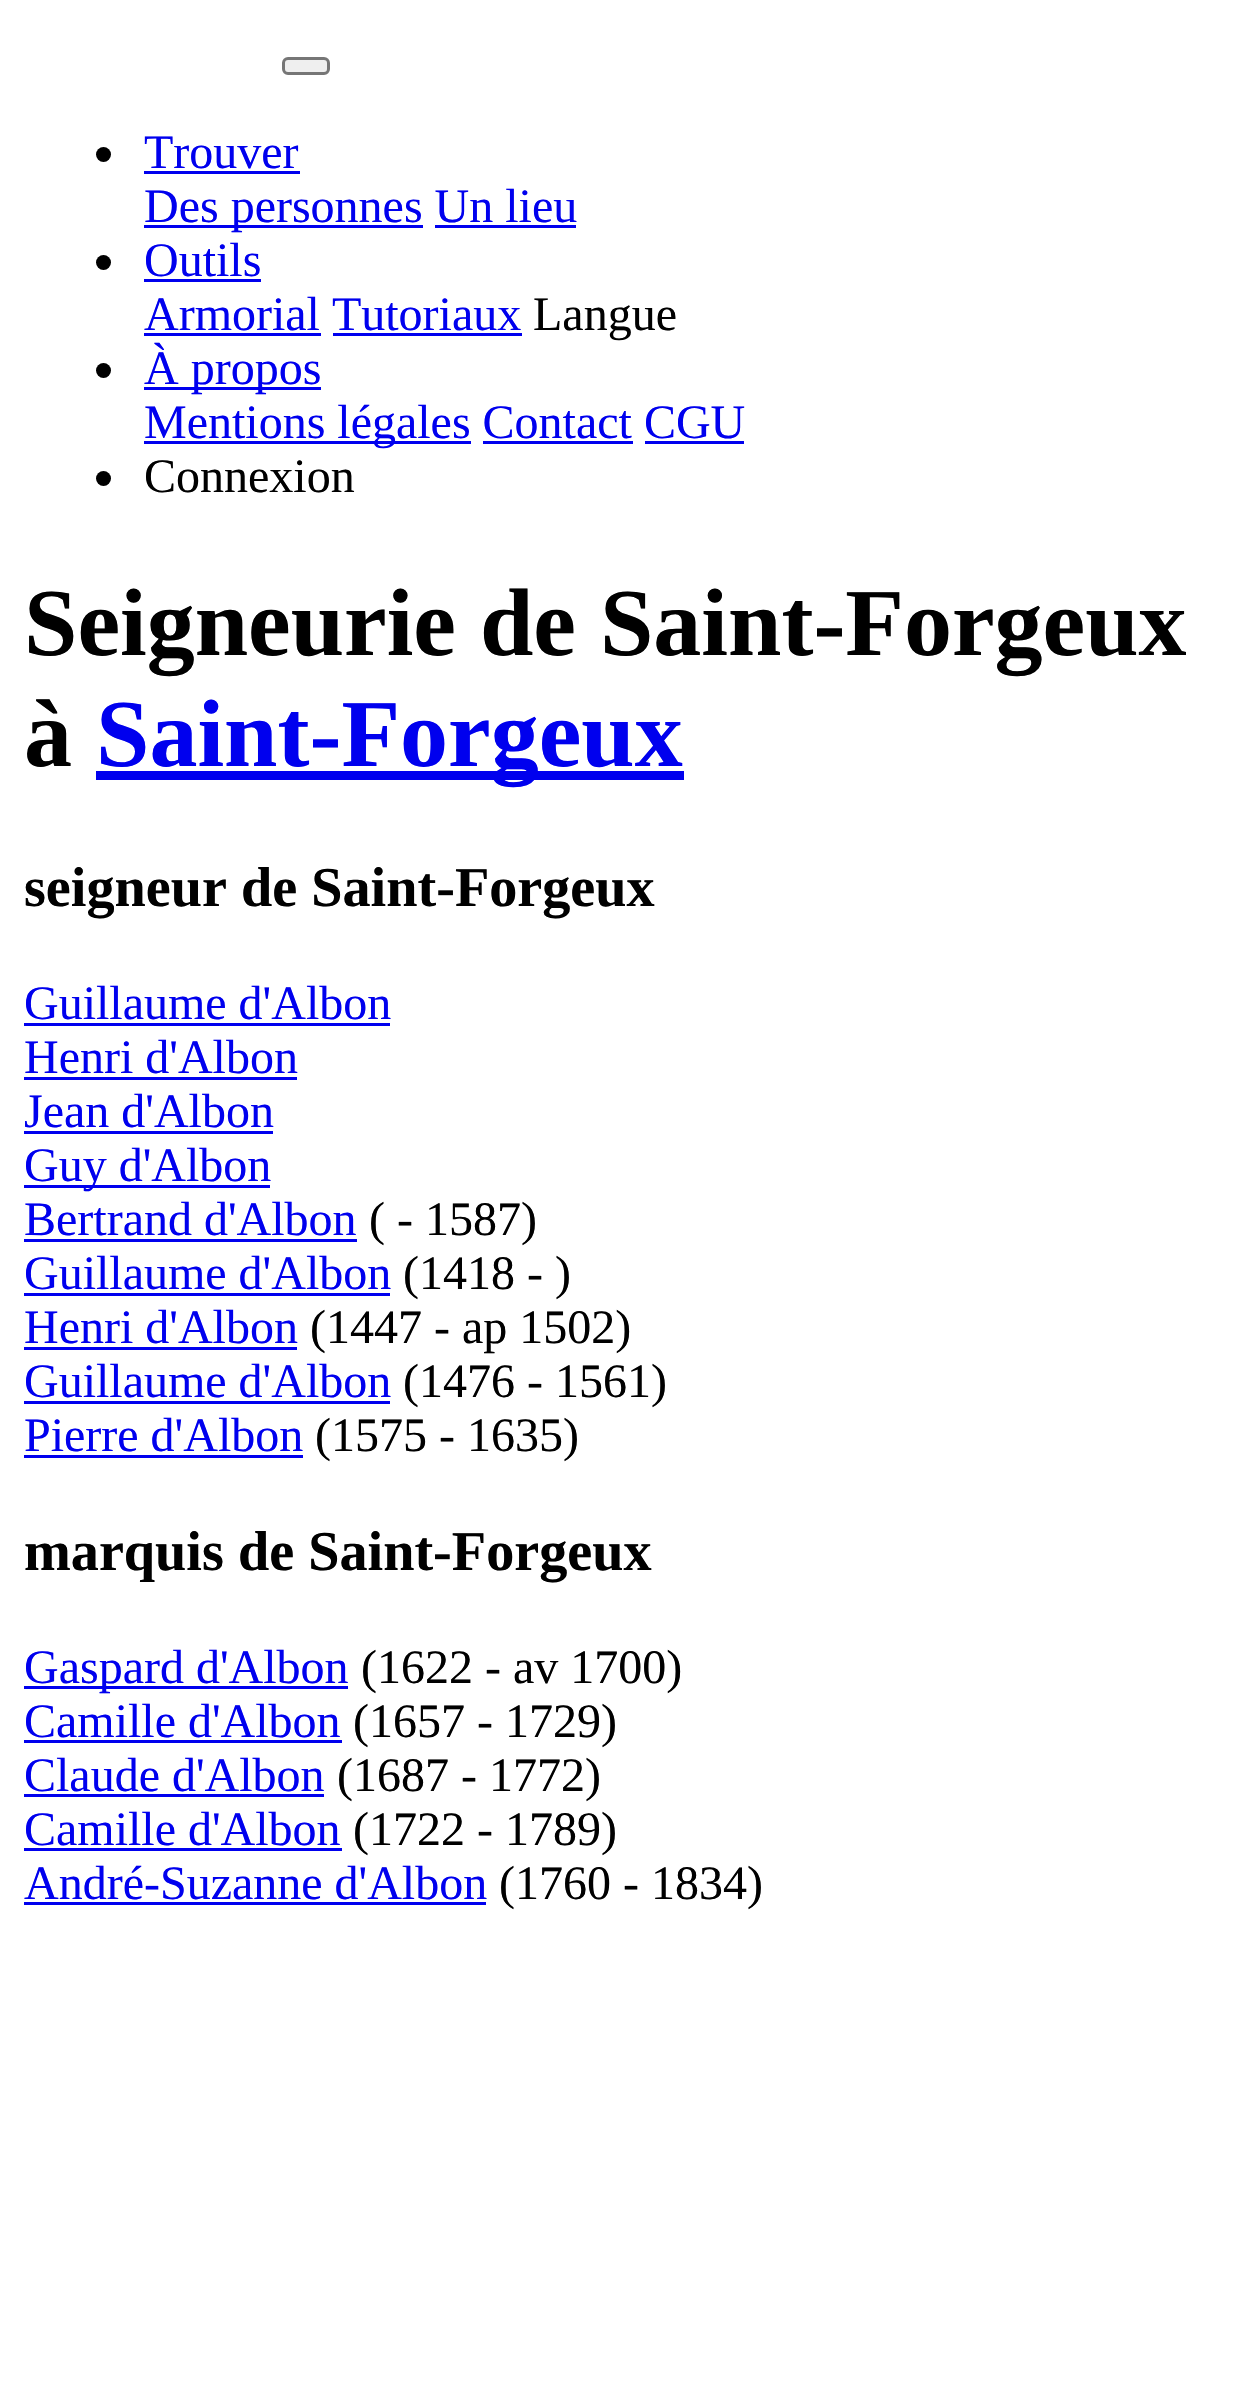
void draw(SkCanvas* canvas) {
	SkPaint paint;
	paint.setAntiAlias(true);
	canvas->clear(0xffffffff);
	paint.setColor(0xffefefef);
	canvas->drawRoundRect(SkRect::MakeXYWH(283.5, 58.5, 45, 15), 4.5, 4.5, paint);
	paint.setStroke(true);
	paint.setStrokeWidth(3);
	paint.setColor(0xff767676);
	canvas->drawRoundRect(SkRect::MakeXYWH(283.5, 58.5, 45, 15), 4.5, 4.5, paint);
	paint.setStroke(false);
	paint.setColor(0xff000000);
	canvas->drawCircle(103.5, 154.5, 7.5, paint);
	SkFont f1(fontMgr->matchFamilyStyle("Liberation Serif", SkFontStyle::Normal()), 48);
	f1.setSubpixel(true);
	paint.setColor(0xff0000ee);
	canvas->drawString("Trouver", 144, 168, f1, paint);
	canvas->drawRect(SkRect::MakeXYWH(144, 171, 156, 3), paint);
	canvas->drawRect(SkRect::MakeXYWH(144, 225, 279, 3), paint);
	canvas->drawString("Des personnes Un lieu", 144, 222, f1, paint);
	canvas->drawRect(SkRect::MakeXYWH(435, 225, 141, 3), paint);
	paint.setColor(0xff000000);
	canvas->drawCircle(103.5, 262.5, 7.5, paint);
	paint.setColor(0xff0000ee);
	canvas->drawString("Outils", 144, 276, f1, paint);
	canvas->drawRect(SkRect::MakeXYWH(144, 279, 117, 3), paint);
	canvas->drawString("Armorial Tutoriaux", 144, 330, f1, paint);
	canvas->drawRect(SkRect::MakeXYWH(144, 333, 177, 3), paint);
	paint.setColor(0xff000000);
	canvas->drawString("Langue", 533, 330, f1, paint);
	paint.setColor(0xff0000ee);
	canvas->drawRect(SkRect::MakeXYWH(333, 333, 189, 3), paint);
	paint.setColor(0xff000000);
	canvas->drawCircle(103.5, 370.5, 7.5, paint);
	paint.setColor(0xff0000ee);
	canvas->drawRect(SkRect::MakeXYWH(144, 387, 177, 3), paint);
	canvas->drawString("À propos", 144, 384, f1, paint);
	canvas->drawRect(SkRect::MakeXYWH(144, 441, 327, 3), paint);
	canvas->drawString("Mentions légales Contact CGU", 144, 438, f1, paint);
	canvas->drawRect(SkRect::MakeXYWH(483, 441, 150, 3), paint);
	canvas->drawRect(SkRect::MakeXYWH(645, 441, 99, 3), paint);
	paint.setColor(0xff000000);
	canvas->drawCircle(103.5, 478.5, 7.5, paint);
	canvas->drawString("Connexion", 144, 492, f1, paint);
	SkFont f2(fontMgr->matchFamilyStyle("Liberation Serif", SkFontStyle::Bold()), 96);
	f2.setSubpixel(true);
	canvas->drawString("Seigneurie de Saint-Forgeux", 24, 655, f2, paint);
	canvas->drawString("à", 24, 766, f2, paint);
	paint.setColor(0xff0000ee);
	canvas->drawRect(SkRect::MakeXYWH(96, 771, 588, 9), paint);
	canvas->drawString("Saint-Forgeux", 96, 766, f2, paint);
	SkFont f3(fontMgr->matchFamilyStyle("Liberation Serif", SkFontStyle::Bold()), 56.2);
	f3.setSubpixel(true);
	paint.setColor(0xff000000);
	canvas->drawString("seigneur de Saint-Forgeux", 24, 906, f3, paint);
	paint.setColor(0xff0000ee);
	canvas->drawString("Guillaume d'Albon", 24, 1019, f1, paint);
	canvas->drawRect(SkRect::MakeXYWH(24, 1023, 366, 3), paint);
	canvas->drawString("Henri d'Albon", 24, 1073, f1, paint);
	canvas->drawRect(SkRect::MakeXYWH(24, 1077, 273, 3), paint);
	canvas->drawString("Jean d'Albon", 24, 1127, f1, paint);
	canvas->drawRect(SkRect::MakeXYWH(24, 1131, 249, 3), paint);
	canvas->drawRect(SkRect::MakeXYWH(24, 1185, 246, 3), paint);
	canvas->drawString("Guy d'Albon", 24, 1181, f1, paint);
	canvas->drawString("Bertrand d'Albon", 24, 1235, f1, paint);
	canvas->drawRect(SkRect::MakeXYWH(24, 1239, 333, 3), paint);
	paint.setColor(0xff000000);
	canvas->drawString("( - 1587)", 369, 1235, f1, paint);
	paint.setColor(0xff0000ee);
	canvas->drawString("Guillaume d'Albon", 24, 1289, f1, paint);
	canvas->drawRect(SkRect::MakeXYWH(24, 1293, 366, 3), paint);
	paint.setColor(0xff000000);
	canvas->drawString("(1418 - )", 403, 1289, f1, paint);
	paint.setColor(0xff0000ee);
	canvas->drawString("Henri d'Albon", 24, 1343, f1, paint);
	canvas->drawRect(SkRect::MakeXYWH(24, 1347, 273, 3), paint);
	paint.setColor(0xff000000);
	canvas->drawString("(1447 - ap 1502)", 310, 1343, f1, paint);
	paint.setColor(0xff0000ee);
	canvas->drawString("Guillaume d'Albon", 24, 1397, f1, paint);
	canvas->drawRect(SkRect::MakeXYWH(24, 1401, 366, 3), paint);
	paint.setColor(0xff000000);
	canvas->drawString("(1476 - 1561)", 403, 1397, f1, paint);
	paint.setColor(0xff0000ee);
	canvas->drawString("Pierre d'Albon", 24, 1451, f1, paint);
	canvas->drawRect(SkRect::MakeXYWH(24, 1455, 279, 3), paint);
	paint.setColor(0xff000000);
	canvas->drawString("(1575 - 1635)", 315, 1451, f1, paint);
	canvas->drawString("marquis de Saint-Forgeux", 24, 1570, f3, paint);
	paint.setColor(0xff0000ee);
	canvas->drawRect(SkRect::MakeXYWH(24, 1686, 324, 3), paint);
	canvas->drawString("Gaspard d'Albon", 24, 1683, f1, paint);
	paint.setColor(0xff000000);
	canvas->drawString("(1622 - av 1700)", 361, 1683, f1, paint);
	paint.setColor(0xff0000ee);
	canvas->drawString("Camille d'Albon", 24, 1737, f1, paint);
	canvas->drawRect(SkRect::MakeXYWH(24, 1740, 318, 3), paint);
	paint.setColor(0xff000000);
	canvas->drawString("(1657 - 1729)", 353, 1737, f1, paint);
	paint.setColor(0xff0000ee);
	canvas->drawString("Claude d'Albon", 24, 1791, f1, paint);
	canvas->drawRect(SkRect::MakeXYWH(24, 1794, 300, 3), paint);
	paint.setColor(0xff000000);
	canvas->drawString("(1687 - 1772)", 337, 1791, f1, paint);
	paint.setColor(0xff0000ee);
	canvas->drawString("Camille d'Albon", 24, 1845, f1, paint);
	canvas->drawRect(SkRect::MakeXYWH(24, 1848, 318, 3), paint);
	paint.setColor(0xff000000);
	canvas->drawString("(1722 - 1789)", 353, 1845, f1, paint);
	paint.setColor(0xff0000ee);
	canvas->drawString("André-Suzanne d'Albon", 24, 1899, f1, paint);
	canvas->drawRect(SkRect::MakeXYWH(24, 1902, 462, 3), paint);
	paint.setColor(0xff000000);
	canvas->drawString("(1760 - 1834)", 499, 1899, f1, paint);
}
